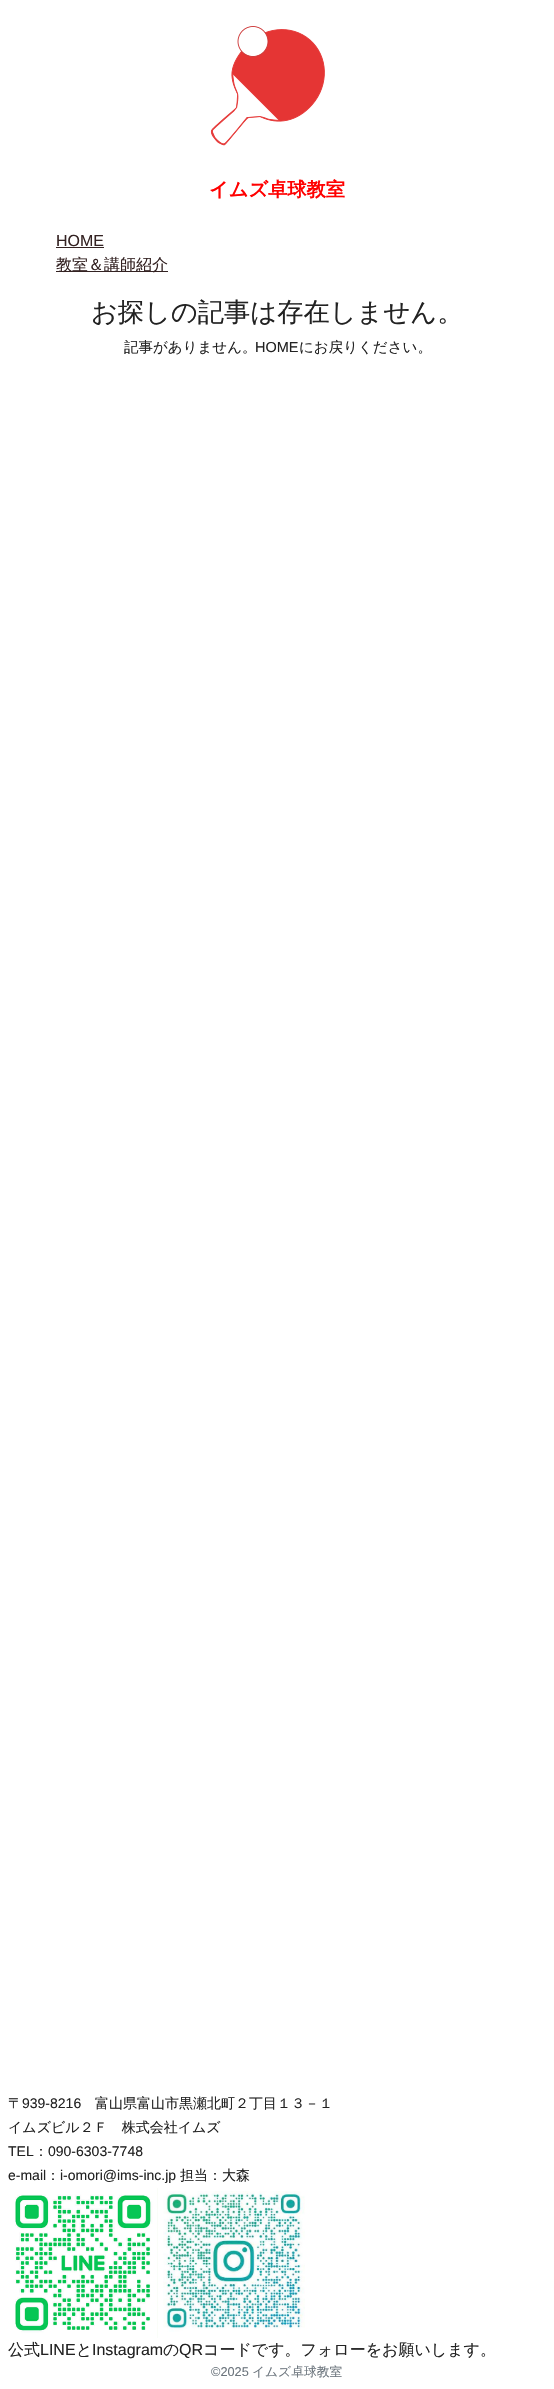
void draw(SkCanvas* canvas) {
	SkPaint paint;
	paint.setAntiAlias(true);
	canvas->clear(0xffffffff);
	canvas->drawImageRect(SkImages::DeferredFromEncodedData(SkData::MakeFromFileName("img1.png")), SkRect::MakeXYWH(210, 26, 115, 120), SkSamplingOptions());
	SkFont f1(fontMgr->matchFamilyStyle("WenQuanYi Zen Hei", SkFontStyle::Bold()), 19.25);
	f1.setSubpixel(true);
	paint.setColor(0xffff0000);
	canvas->drawString("イムズ卓球教室", 209, 196, f1, paint);
	SkFont f2(fontMgr->matchFamilyStyle("Liberation Sans", SkFontStyle::Normal()), 16);
	f2.setSubpixel(true);
	paint.setColor(0xff332222);
	canvas->drawString("HOME", 56, 246, f2, paint);
	canvas->drawRect(SkRect::MakeXYWH(56, 247, 48, 1), paint);
	canvas->drawRect(SkRect::MakeXYWH(56, 271, 112, 1), paint);
	SkFont f3(fontMgr->matchFamilyStyle("WenQuanYi Zen Hei", SkFontStyle(500, SkFontStyle::kNormal_Width, SkFontStyle::kUpright_Slant)), 16);
	f3.setSubpixel(true);
	canvas->drawString("教室＆講師紹介", 56, 270, f3, paint);
	SkFont f4(fontMgr->matchFamilyStyle("WenQuanYi Zen Hei", SkFontStyle(500, SkFontStyle::kNormal_Width, SkFontStyle::kUpright_Slant)), 26.25);
	f4.setSubpixel(true);
	paint.setColor(0xff222222);
	canvas->drawString("お探しの記事は存在しません。", 91, 321, f4, paint);
	SkFont f5(fontMgr->matchFamilyStyle("WenQuanYi Zen Hei", SkFontStyle(500, SkFontStyle::kNormal_Width, SkFontStyle::kUpright_Slant)), 14.5);
	f5.setSubpixel(true);
	canvas->drawString("記事がありません。", 124, 352, f5, paint);
	SkFont f6(fontMgr->matchFamilyStyle("Liberation Sans", SkFontStyle::Normal()), 14.5);
	f6.setSubpixel(true);
	canvas->drawString("HOME", 255, 352, f6, paint);
	canvas->drawString("にお戻りください。", 299, 352, f5, paint);
	SkFont f7(fontMgr->matchFamilyStyle("WenQuanYi Zen Hei", SkFontStyle(500, SkFontStyle::kNormal_Width, SkFontStyle::kUpright_Slant)), 14);
	f7.setSubpixel(true);
	canvas->drawString("〒", 8, 2108, f7, paint);
	SkFont f8(fontMgr->matchFamilyStyle("Liberation Sans", SkFontStyle::Normal()), 14);
	f8.setSubpixel(true);
	canvas->drawString("939-8216", 22, 2108, f8, paint);
	canvas->drawString("富山県富山市黒瀬北町２丁目１３－１", 95, 2108, f7, paint);
	canvas->drawString("イムズビル２Ｆ　株式会社イムズ", 8, 2132, f7, paint);
	canvas->drawString("TEL", 8, 2156, f8, paint);
	canvas->drawString("：", 34, 2156, f7, paint);
	canvas->drawString("090-6303-7748", 48, 2156, f8, paint);
	canvas->drawString("e-mail", 8, 2180, f8, paint);
	canvas->drawString("：", 46, 2180, f7, paint);
	canvas->drawString("i-omori@ims-inc.jp", 60, 2180, f8, paint);
	canvas->drawString("担当：大森", 180, 2180, f7, paint);
	canvas->drawImageRect(SkImages::DeferredFromEncodedData(SkData::MakeFromFileName("img2.png")), SkRect::MakeXYWH(15, 2188, 143, 150), SkSamplingOptions());
	canvas->drawImageRect(SkImages::DeferredFromEncodedData(SkData::MakeFromFileName("img3.png")), SkRect::MakeXYWH(163, 2191, 142, 141), SkSamplingOptions());
	canvas->drawString("公式", 8, 2355, f3, paint);
	canvas->drawString("LINE", 40, 2355, f2, paint);
	canvas->drawString("と", 76, 2355, f3, paint);
	canvas->drawString("Instagram", 92, 2355, f2, paint);
	canvas->drawString("の", 163, 2355, f3, paint);
	canvas->drawString("QR", 179, 2355, f2, paint);
	canvas->drawString("コードです。フォローをお願いします。", 203, 2355, f3, paint);
	SkFont f9(fontMgr->matchFamilyStyle("Liberation Sans", SkFontStyle::Normal()), 12.75);
	f9.setSubpixel(true);
	paint.setColor(0xff6c757d);
	canvas->drawString("©2025", 211, 2376, f9, paint);
	SkFont f10(fontMgr->matchFamilyStyle("WenQuanYi Zen Hei", SkFontStyle(500, SkFontStyle::kNormal_Width, SkFontStyle::kUpright_Slant)), 12.75);
	f10.setSubpixel(true);
	canvas->drawString("イムズ卓球教室", 252, 2376, f10, paint);
}
